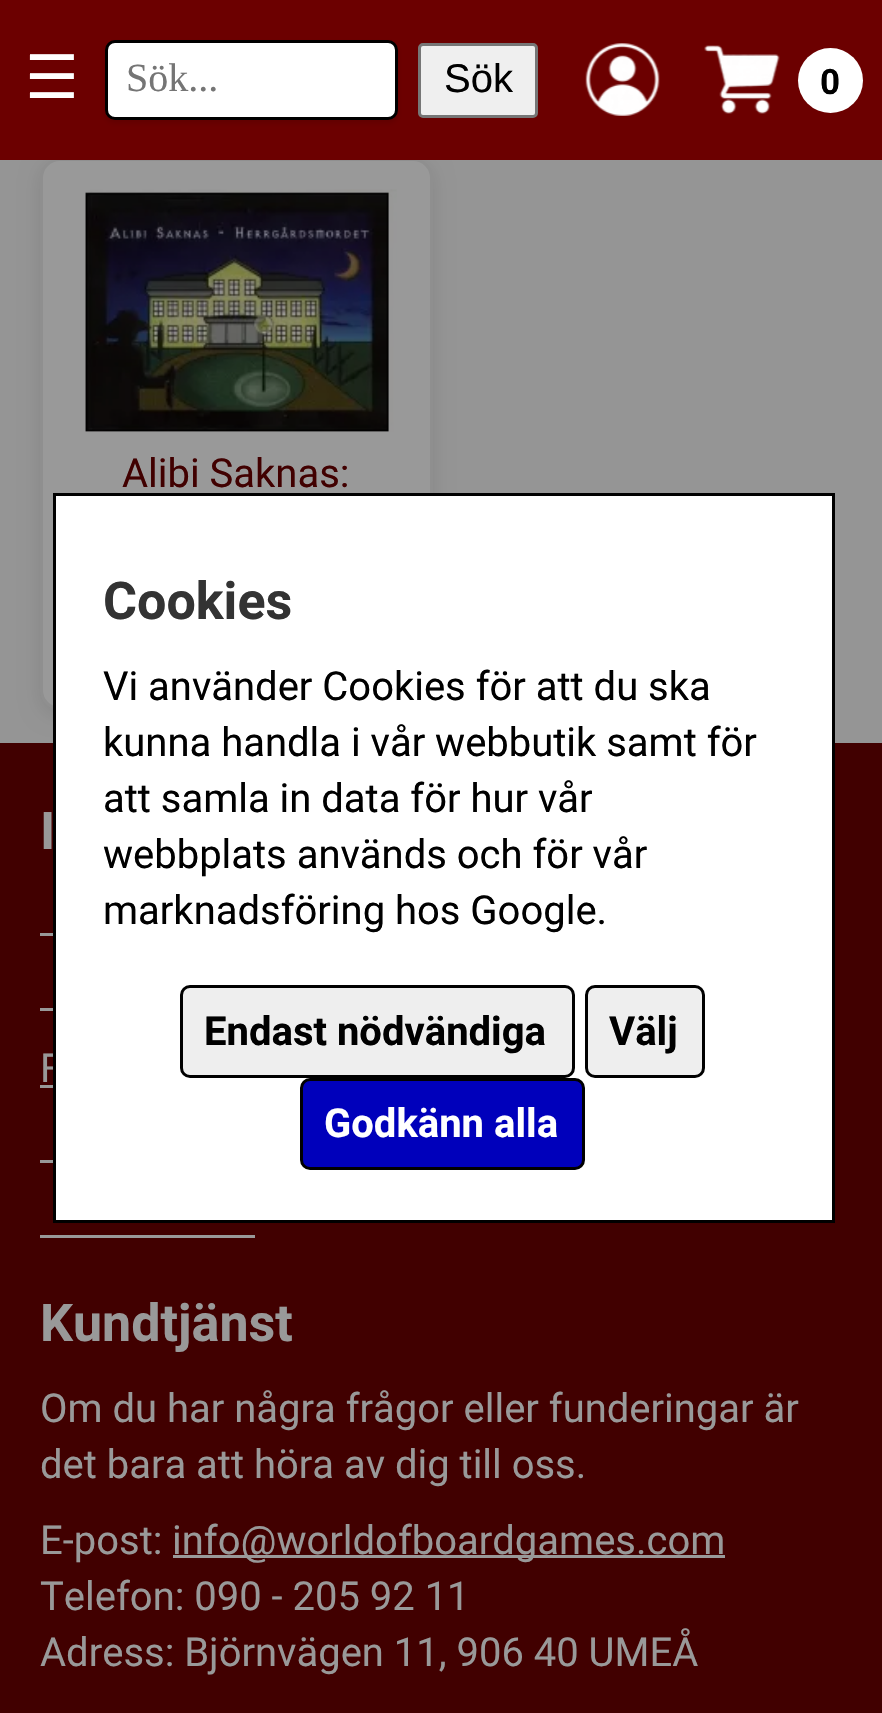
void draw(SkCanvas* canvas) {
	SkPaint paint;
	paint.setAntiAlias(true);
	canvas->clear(0xff959595);
	paint.setColor(0xff410000);
	canvas->drawRect(SkRect::MakeXYWH(0, 743, 882, 970), paint);
	paint.setColor(0x1a000000);
	paint.setMaskFilter(SkMaskFilter::MakeBlur(kNormal_SkBlurStyle, 10));
	canvas->drawRoundRect(SkRect::MakeXYWH(40, 163, 393, 552), 20, 20, paint);
	paint.setMaskFilter(nullptr);
	paint.setColor(0xff999999);
	canvas->drawRoundRect(SkRect::MakeXYWH(41.5, 159.5, 390, 549), 18.5, 18.5, paint);
	paint.setStroke(true);
	paint.setStrokeWidth(3);
	paint.setColor(0xff8f8f8f);
	canvas->drawRoundRect(SkRect::MakeXYWH(41.5, 159.5, 390, 549), 18.5, 18.5, paint);
	paint.setStroke(false);
	paint.setColor(0xff6c0000);
	canvas->drawRect(SkRect::MakeXYWH(0, 0, 882, 160), paint);
	SkFont f1(fontMgr->matchFamilyStyle("DejaVu Sans", SkFontStyle::Normal()), 60);
	f1.setSubpixel(true);
	paint.setColor(0xffffffff);
	canvas->drawString("☰", 25, 98, f1, paint);
	paint.setColor(0x1a000000);
	paint.setMaskFilter(SkMaskFilter::MakeBlur(kNormal_SkBlurStyle, 2.5));
	canvas->drawRoundRect(SkRect::MakeXYWH(105, 43, 293, 80), 10, 10, paint);
	paint.setMaskFilter(nullptr);
	paint.setColor(0xffffffff);
	canvas->drawRoundRect(SkRect::MakeXYWH(106.5, 41.5, 290, 77), 8.5, 8.5, paint);
	paint.setStroke(true);
	paint.setColor(0xff000000);
	canvas->drawRoundRect(SkRect::MakeXYWH(106.5, 41.5, 290, 77), 8.5, 8.5, paint);
	SkFont f2(fontMgr->matchFamilyStyle("Liberation Serif", SkFontStyle::Normal()), 40);
	f2.setSubpixel(true);
	paint.setStroke(false);
	paint.setColor(0xff757575);
	canvas->drawString("Sök...", 126, 91, f2, paint);
	paint.setColor(0xffefefef);
	canvas->drawRoundRect(SkRect::MakeXYWH(419.5, 44.5, 117, 72), 3.5, 3.5, paint);
	paint.setStroke(true);
	paint.setColor(0xff767676);
	canvas->drawRoundRect(SkRect::MakeXYWH(419.5, 44.5, 117, 72), 3.5, 3.5, paint);
	SkFont f3(fontMgr->matchFamilyStyle("Liberation Sans", SkFontStyle::Normal()), 40);
	f3.setSubpixel(true);
	paint.setStroke(false);
	paint.setColor(0xff000000);
	canvas->drawString("Sök", 444, 92, f3, paint);
	canvas->drawImageRect(SkImages::DeferredFromEncodedData(SkData::MakeFromFileName("img1.png")), SkRect::MakeXYWH(585, 43, 75, 73), SkSamplingOptions());
	canvas->drawImageRect(SkImages::DeferredFromEncodedData(SkData::MakeFromFileName("img2.png")), SkRect::MakeXYWH(704, 45, 76, 69), SkSamplingOptions());
	paint.setColor(0xffffffff);
	canvas->drawCircle(830.5, 80.5, 32.5, paint);
	SkFont f4(fontMgr->matchFamilyStyle("Roboto", SkFontStyle::Bold()), 35);
	f4.setSubpixel(true);
	paint.setColor(0xff000000);
	canvas->drawString("0", 820, 94, f4, paint);
	canvas->drawImageRect(SkImages::DeferredFromEncodedData(SkData::MakeFromFileName("img3.png")), SkRect::MakeXYWH(85, 189, 312, 243), SkSamplingOptions());
	SkFont f5(fontMgr->matchFamilyStyle("Roboto", SkFontStyle::Normal()), 40);
	f5.setSubpixel(true);
	paint.setColor(0xff410000);
	canvas->drawString("Alibi Saknas:", 122, 487, f5, paint);
	paint.setColor(0xff999999);
	canvas->drawString("F", 40, 1082, f5, paint);
	paint.setColor(0xffffffff);
	canvas->drawRect(SkRect::MakeXYWH(54.5, 494.5, 779, 727), paint);
	paint.setStroke(true);
	paint.setColor(0xff000000);
	canvas->drawRect(SkRect::MakeXYWH(54.5, 494.5, 779, 727), paint);
	SkFont f6(fontMgr->matchFamilyStyle("Roboto", SkFontStyle::Bold()), 52);
	f6.setSubpixel(true);
	paint.setStroke(false);
	paint.setColor(0xff333333);
	canvas->drawString("Cookies", 103, 619, f6, paint);
	paint.setColor(0xff000000);
	canvas->drawString("Vi använder Cookies för att du ska", 103, 700, f5, paint);
	canvas->drawString("kunna handla i vår webbutik samt för", 103, 756, f5, paint);
	canvas->drawString("att samla in data för hur vår", 103, 812, f5, paint);
	canvas->drawString("webbplats används och för vår", 103, 868, f5, paint);
	canvas->drawString("marknadsföring hos Google.", 103, 924, f5, paint);
	paint.setColor(0xffeeeeee);
	canvas->drawRoundRect(SkRect::MakeXYWH(181.5, 986.5, 392, 90), 8.5, 8.5, paint);
	paint.setStroke(true);
	paint.setColor(0xff000000);
	canvas->drawRoundRect(SkRect::MakeXYWH(181.5, 986.5, 392, 90), 8.5, 8.5, paint);
	SkFont f7(fontMgr->matchFamilyStyle("Roboto", SkFontStyle::Bold()), 40);
	f7.setSubpixel(true);
	paint.setStroke(false);
	canvas->drawString("Endast nödvändiga", 204, 1045, f7, paint);
	paint.setColor(0xffeeeeee);
	canvas->drawRoundRect(SkRect::MakeXYWH(586.5, 986.5, 117, 90), 8.5, 8.5, paint);
	paint.setStroke(true);
	paint.setColor(0xff000000);
	canvas->drawRoundRect(SkRect::MakeXYWH(586.5, 986.5, 117, 90), 8.5, 8.5, paint);
	paint.setStroke(false);
	canvas->drawString("Välj", 609, 1045, f7, paint);
	paint.setColor(0xff0000bb);
	canvas->drawRoundRect(SkRect::MakeXYWH(301.5, 1079.5, 282, 89), 8.5, 8.5, paint);
	paint.setStroke(true);
	paint.setColor(0xff000000);
	canvas->drawRoundRect(SkRect::MakeXYWH(301.5, 1079.5, 282, 89), 8.5, 8.5, paint);
	paint.setStroke(false);
	paint.setColor(0xffffffff);
	canvas->drawString("Godkänn alla", 324, 1137, f7, paint);
	paint.setColor(0xff999999);
	canvas->drawString("I", 40, 849, f6, paint);
	canvas->drawRect(SkRect::MakeXYWH(40, 933, 13, 3), paint);
	canvas->drawRect(SkRect::MakeXYWH(40, 1008, 13, 3), paint);
	canvas->drawRect(SkRect::MakeXYWH(40, 1085, 13, 3), paint);
	canvas->drawRect(SkRect::MakeXYWH(40, 1160, 13, 3), paint);
	canvas->drawRect(SkRect::MakeXYWH(40, 1235, 215, 3), paint);
	canvas->drawString("Kundtjänst", 40, 1341, f6, paint);
	canvas->drawString("Om du har några frågor eller funderingar är", 40, 1422, f5, paint);
	canvas->drawString("det bara att höra av dig till oss.", 40, 1478, f5, paint);
	canvas->drawString("E-post:", 40, 1554, f5, paint);
	canvas->drawRect(SkRect::MakeXYWH(173, 1555, 552, 3), paint);
	canvas->drawString("info@worldofboardgames.com", 172, 1554, f5, paint);
	canvas->drawString("Telefon: 090 - 205 92 11", 40, 1610, f5, paint);
	canvas->drawString("Adress: Björnvägen 11, 906 40 UMEÅ", 40, 1666, f5, paint);
}
